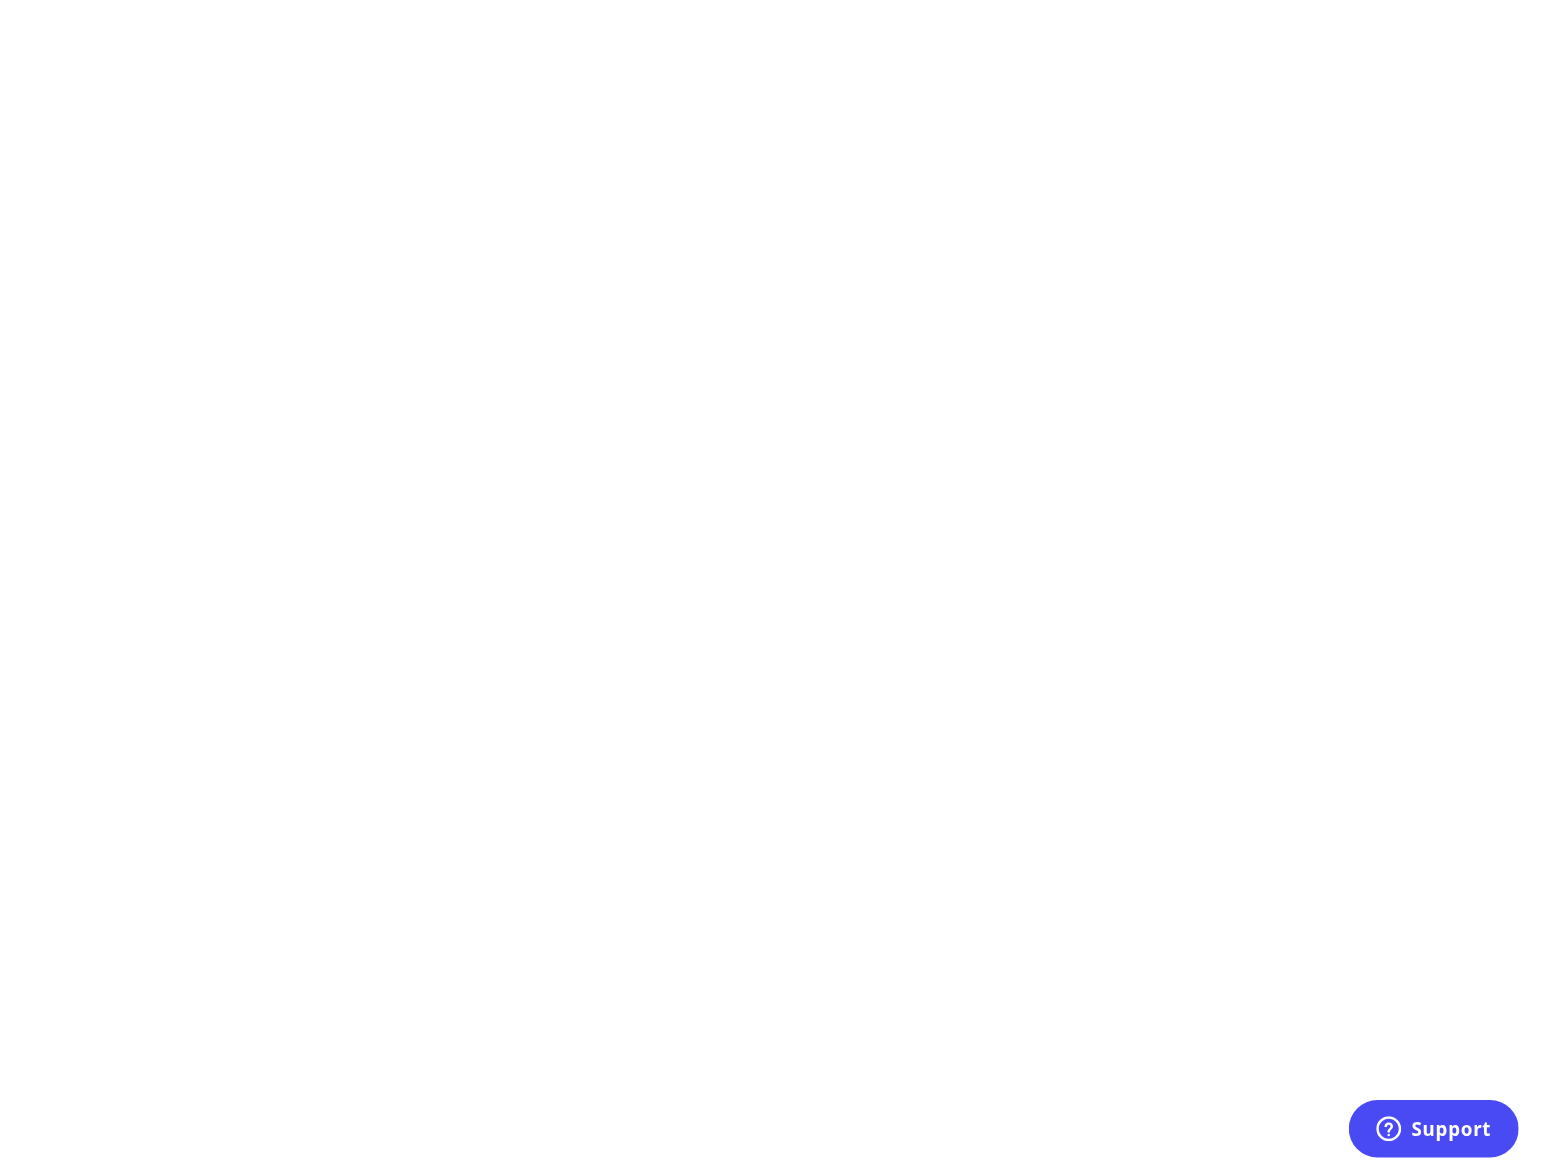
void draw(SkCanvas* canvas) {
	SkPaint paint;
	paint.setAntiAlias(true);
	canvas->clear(0xffffffff);
	canvas->drawImageRect(SkImages::DeferredFromEncodedData(SkData::MakeFromFileName("img1.png")), SkRect::MakeXYWH(1349, 1100, 170, 58), SkSamplingOptions());
}
